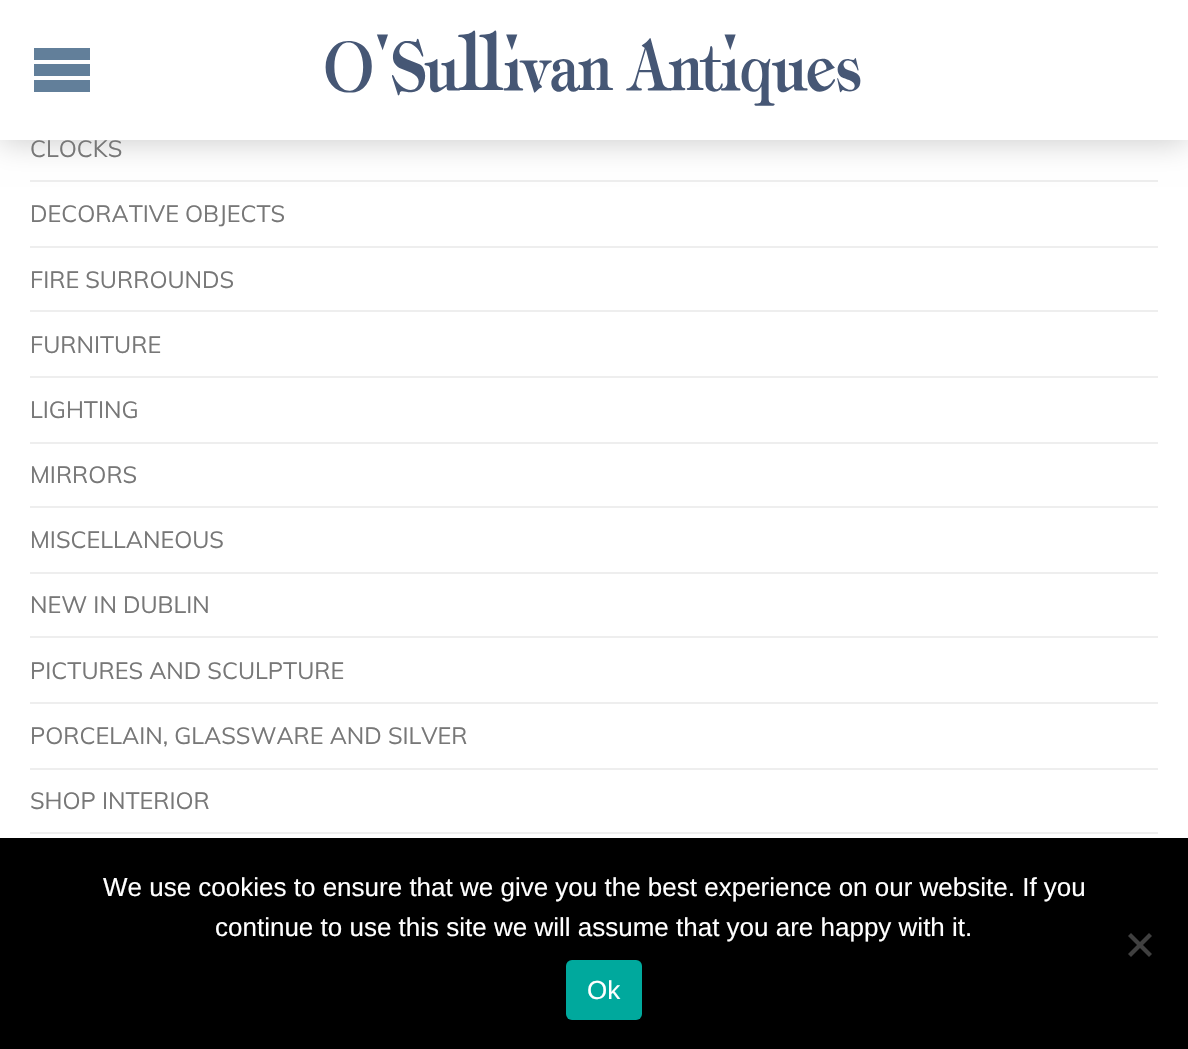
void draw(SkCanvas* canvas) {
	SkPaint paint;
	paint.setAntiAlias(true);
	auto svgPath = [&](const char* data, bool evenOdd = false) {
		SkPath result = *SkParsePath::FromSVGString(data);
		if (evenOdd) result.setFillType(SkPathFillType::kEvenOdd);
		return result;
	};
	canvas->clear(0xffffffff);
	paint.setColor(0xffeeeeee);
	canvas->drawRect(SkRect::MakeXYWH(30, 180, 1128, 2), paint);
	paint.setColor(0x33000000);
	paint.setMaskFilter(SkMaskFilter::MakeBlur(kNormal_SkBlurStyle, 15));
	canvas->drawRect(SkRect::MakeXYWH(0, 2, 1188, 140), paint);
	paint.setMaskFilter(nullptr);
	paint.setColor(0xffffffff);
	canvas->drawRect(SkRect::MakeXYWH(0, 0, 1188, 140), paint);
	paint.setColor(0xff627f9a);
	canvas->drawPath(svgPath("M34 48H90V60H34ZM34 64H90V76H34ZM34 80H90V92H34Z"), paint);
	canvas->drawImageRect(SkImages::DeferredFromEncodedData(SkData::MakeFromFileName("img1.png")), SkRect::MakeXYWH(325, 30, 536, 76), SkSamplingOptions());
	SkFont f1(fontMgr->matchFamilyStyle("Muli", SkFontStyle::Normal()), 23.4);
	f1.setSubpixel(true);
	paint.setColor(0xff777777);
	canvas->drawString("CLOCKS", 30, 157, f1, paint);
	paint.setColor(0xffeeeeee);
	canvas->drawRect(SkRect::MakeXYWH(30, 246, 1128, 2), paint);
	paint.setColor(0xff777777);
	canvas->drawString("DECORATIVE OBJECTS", 30, 222, f1, paint);
	paint.setColor(0xffeeeeee);
	canvas->drawRect(SkRect::MakeXYWH(30, 310, 1128, 2), paint);
	paint.setColor(0xff777777);
	canvas->drawString("FIRE SURROUNDS", 30, 288, f1, paint);
	paint.setColor(0xffeeeeee);
	canvas->drawRect(SkRect::MakeXYWH(30, 376, 1128, 2), paint);
	paint.setColor(0xff777777);
	canvas->drawString("FURNITURE", 30, 353, f1, paint);
	paint.setColor(0xffeeeeee);
	canvas->drawRect(SkRect::MakeXYWH(30, 442, 1128, 2), paint);
	paint.setColor(0xff777777);
	canvas->drawString("LIGHTING", 30, 418, f1, paint);
	paint.setColor(0xffeeeeee);
	canvas->drawRect(SkRect::MakeXYWH(30, 506, 1128, 2), paint);
	paint.setColor(0xff777777);
	canvas->drawString("MIRRORS", 30, 483, f1, paint);
	paint.setColor(0xffeeeeee);
	canvas->drawRect(SkRect::MakeXYWH(30, 572, 1128, 2), paint);
	paint.setColor(0xff777777);
	canvas->drawString("MISCELLANEOUS", 30, 548, f1, paint);
	paint.setColor(0xffeeeeee);
	canvas->drawRect(SkRect::MakeXYWH(30, 636, 1128, 2), paint);
	paint.setColor(0xff777777);
	canvas->drawString("NEW IN DUBLIN", 30, 613, f1, paint);
	paint.setColor(0xffeeeeee);
	canvas->drawRect(SkRect::MakeXYWH(30, 702, 1128, 2), paint);
	paint.setColor(0xff777777);
	canvas->drawString("PICTURES AND SCULPTURE", 30, 679, f1, paint);
	paint.setColor(0xffeeeeee);
	canvas->drawRect(SkRect::MakeXYWH(30, 768, 1128, 2), paint);
	paint.setColor(0xff777777);
	canvas->drawString("PORCELAIN, GLASSWARE AND SILVER", 30, 744, f1, paint);
	paint.setColor(0xffeeeeee);
	canvas->drawRect(SkRect::MakeXYWH(30, 832, 1128, 2), paint);
	paint.setColor(0xff777777);
	canvas->drawString("SHOP INTERIOR", 30, 809, f1, paint);
	paint.setColor(0xff000000);
	canvas->drawRect(SkRect::MakeXYWH(0, 838, 1188, 211), paint);
	SkFont f2(fontMgr->matchFamilyStyle("Liberation Sans", SkFontStyle::Normal()), 26);
	f2.setSubpixel(true);
	paint.setColor(0xffffffff);
	canvas->drawString("We use cookies to ensure that we give you the best experience on our website. If you", 103, 896, f2, paint);
	canvas->drawString("continue to use this site we will assume that you are happy with it.", 215, 936, f2, paint);
	paint.setColor(0xff404040);
	canvas->drawPath(svgPath("M1149 933L1152 936L1131 957L1128 954Z"), paint);
	canvas->drawPath(svgPath("M1128 936L1131 933L1152 954L1149 957Z"), paint);
	paint.setColor(0xff00a99d);
	canvas->drawRoundRect(SkRect::MakeXYWH(566, 960, 76, 60), 6, 6, paint);
	paint.setColor(0xffffffff);
	canvas->drawString("Ok", 587, 999, f2, paint);
}
